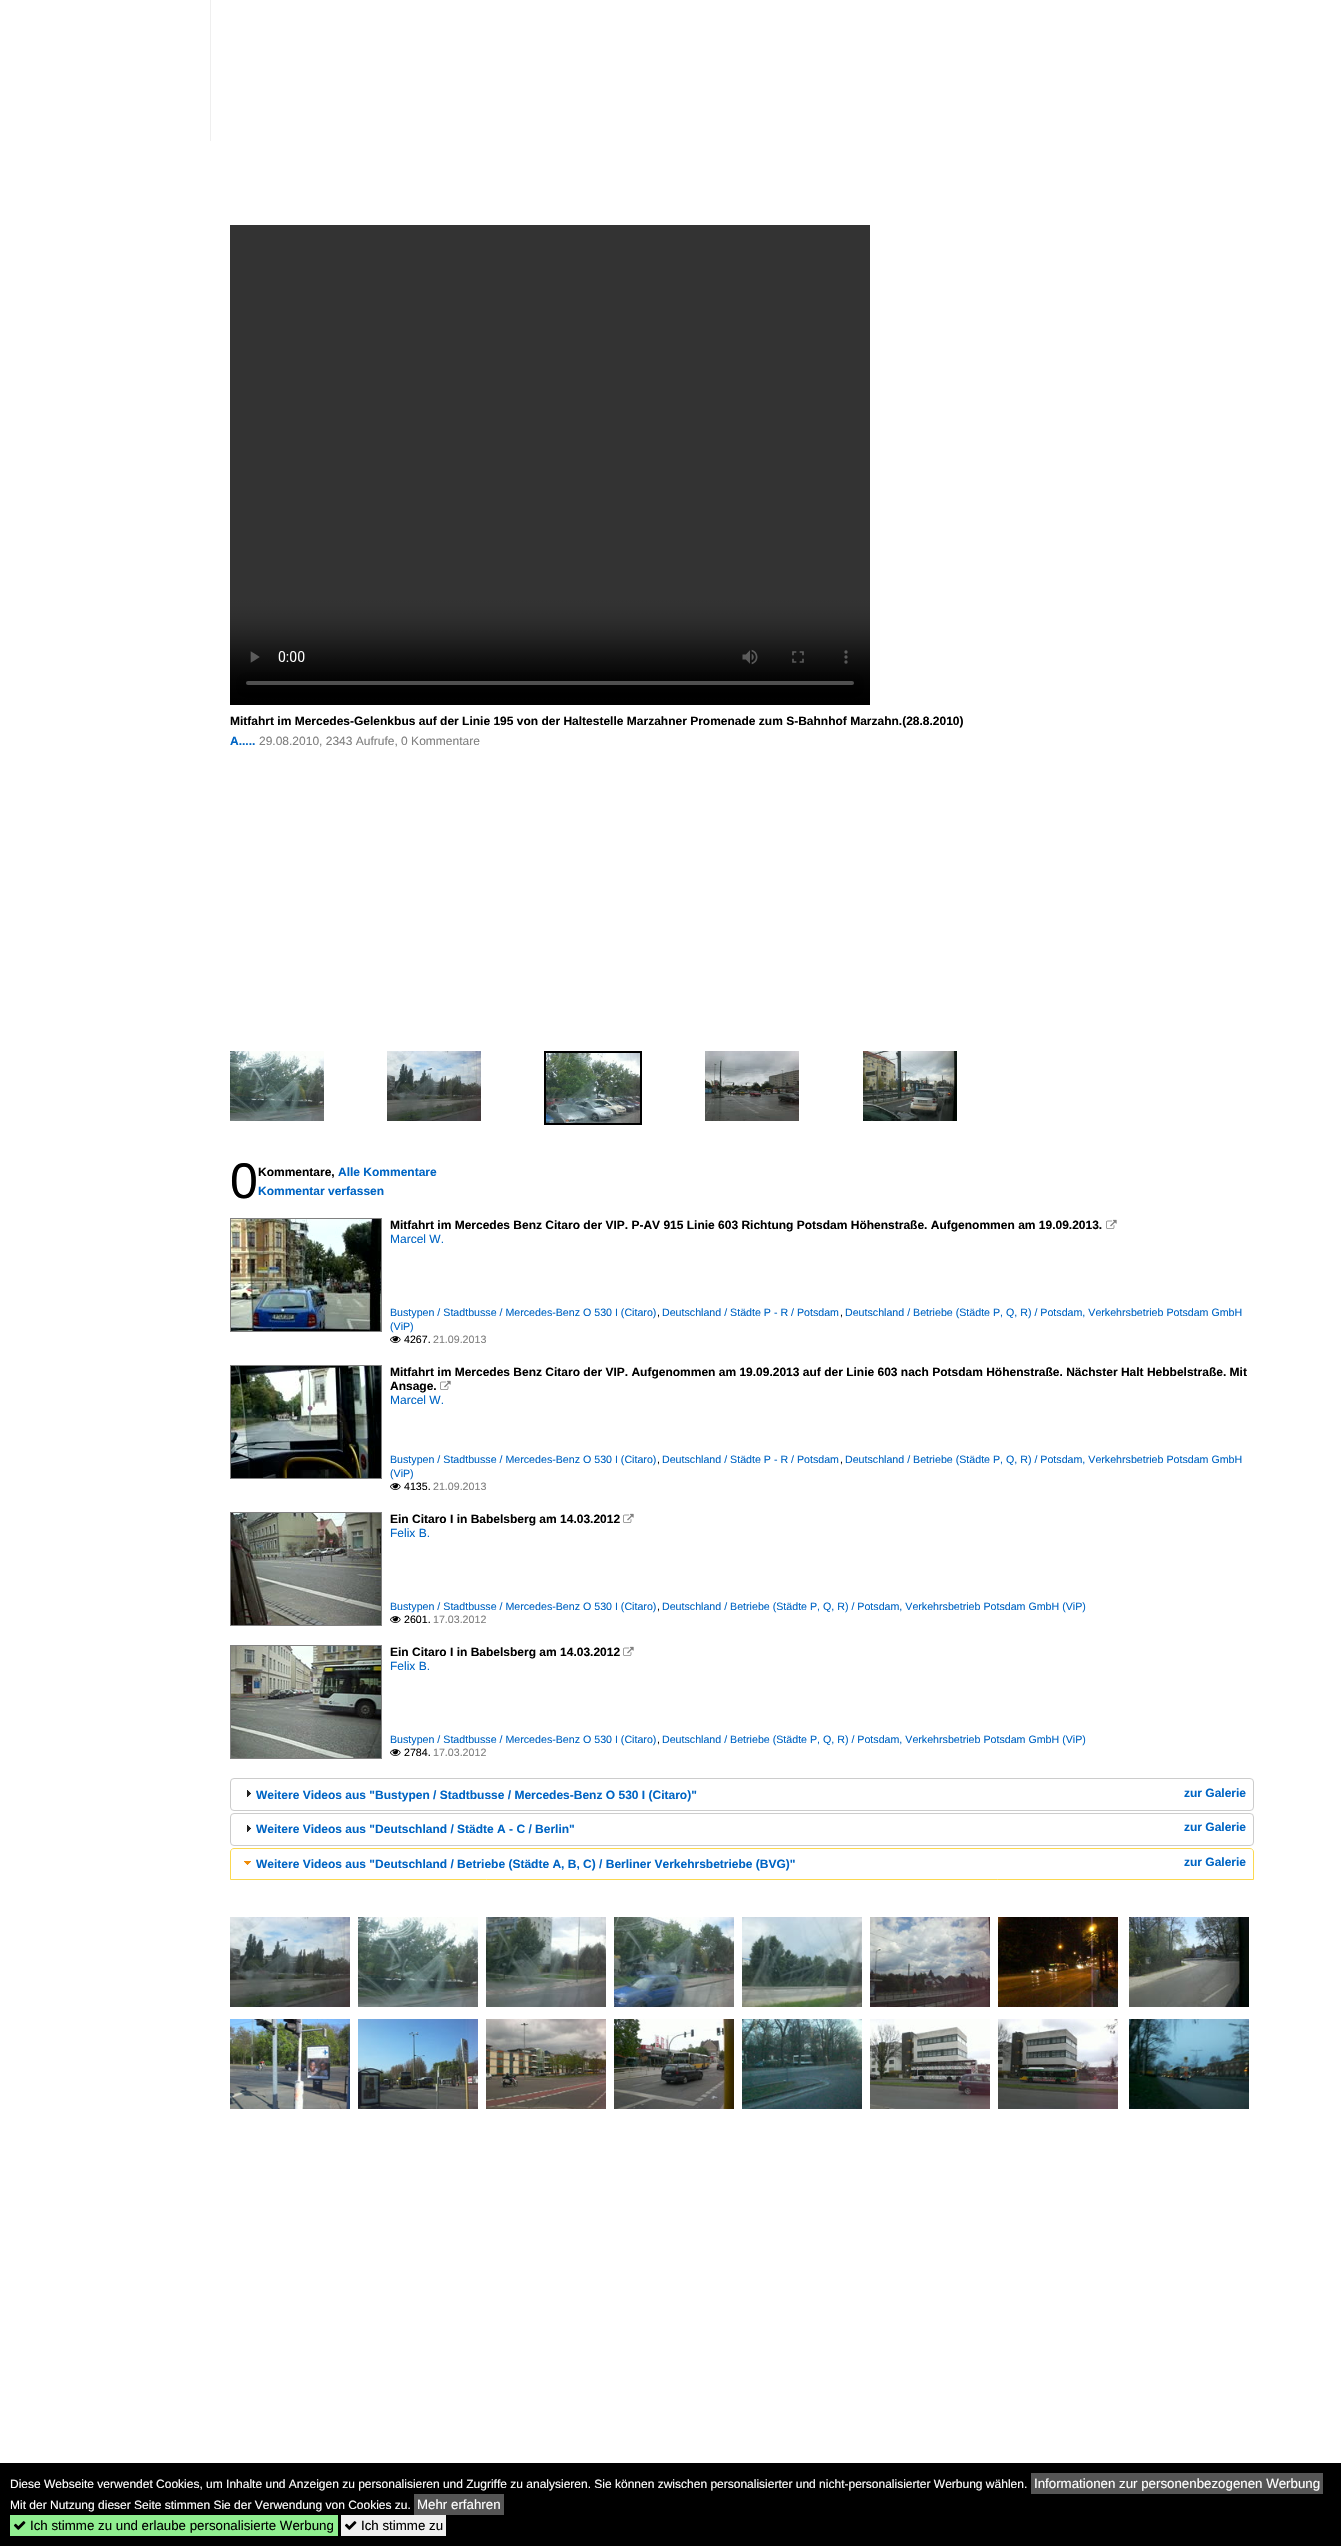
void draw(SkCanvas* canvas) {
	SkPaint paint;
	paint.setAntiAlias(true);
	auto svgPath = [&](const char* data, bool evenOdd = false) {
		SkPath result = *SkParsePath::FromSVGString(data);
		if (evenOdd) result.setFillType(SkPathFillType::kEvenOdd);
		return result;
	};
	canvas->clear(0xffffffff);
	paint.setColor(0xffefefef);
	canvas->drawRect(SkRect::MakeXYWH(210, 0, 1, 141), paint);
	canvas->drawImageRect(SkImages::DeferredFromEncodedData(SkData::MakeFromFileName("img1.png")), SkRect::MakeXYWH(230, 225, 640, 480), SkSamplingOptions());
	SkFont f1(fontMgr->matchFamilyStyle("Liberation Sans", SkFontStyle::Bold()), 12);
	f1.setSubpixel(true);
	paint.setColor(0xff000000);
	canvas->drawString("Mitfahrt im Mercedes-Gelenkbus auf der Linie 195 von der Haltestelle Marzahner Promenade zum S-Bahnhof Marzahn.(28.8.2010)", 230, 725, f1, paint);
	paint.setColor(0xff0065c4);
	canvas->drawString("A.....", 230, 745, f1, paint);
	SkFont f2(fontMgr->matchFamilyStyle("Liberation Sans", SkFontStyle::Normal()), 12);
	f2.setSubpixel(true);
	paint.setColor(0xff808080);
	canvas->drawString("29.08.2010, 2343 Aufrufe, 0 Kommentare", 259, 745, f2, paint);
	canvas->drawImageRect(SkImages::DeferredFromEncodedData(SkData::MakeFromFileName("img2.png")), SkRect::MakeXYWH(230, 1051, 94, 70), SkSamplingOptions());
	canvas->drawImageRect(SkImages::DeferredFromEncodedData(SkData::MakeFromFileName("img3.png")), SkRect::MakeXYWH(387, 1051, 94, 70), SkSamplingOptions());
	paint.setStroke(true);
	paint.setStrokeWidth(2);
	paint.setColor(0xff000000);
	canvas->drawRect(SkRect::MakeXYWH(545, 1052, 96, 72), paint);
	canvas->drawImageRect(SkImages::DeferredFromEncodedData(SkData::MakeFromFileName("img4.png")), SkRect::MakeXYWH(546, 1053, 94, 70), SkSamplingOptions());
	canvas->drawImageRect(SkImages::DeferredFromEncodedData(SkData::MakeFromFileName("img5.png")), SkRect::MakeXYWH(705, 1051, 94, 70), SkSamplingOptions());
	canvas->drawImageRect(SkImages::DeferredFromEncodedData(SkData::MakeFromFileName("img6.png")), SkRect::MakeXYWH(863, 1051, 94, 70), SkSamplingOptions());
	SkFont f3(fontMgr->matchFamilyStyle("Liberation Sans", SkFontStyle::Normal()), 50);
	f3.setSubpixel(true);
	paint.setStroke(false);
	canvas->drawString("0", 230, 1198, f3, paint);
	canvas->drawString("Kommentare,", 258, 1176, f1, paint);
	paint.setColor(0xff0065c4);
	canvas->drawString("Alle Kommentare", 338, 1176, f1, paint);
	canvas->drawString("Kommentar verfassen", 258, 1195, f1, paint);
	paint.setStroke(true);
	paint.setStrokeWidth(1);
	paint.setColor(0xff808080);
	canvas->drawRect(SkRect::MakeXYWH(230.5, 1218.5, 151, 113), paint);
	canvas->drawImageRect(SkImages::DeferredFromEncodedData(SkData::MakeFromFileName("img7.png")), SkRect::MakeXYWH(231, 1219, 150, 112), SkSamplingOptions());
	paint.setStroke(false);
	paint.setColor(0xff000000);
	canvas->drawString("Mitfahrt im Mercedes Benz Citaro der VIP. P-AV 915 Linie 603 Richtung Potsdam Höhenstraße. Aufgenommen am 19.09.2013.", 390, 1229, f1, paint);
	canvas->drawImageRect(SkImages::DeferredFromEncodedData(SkData::MakeFromFileName("img8.png")), SkRect::MakeXYWH(1106, 1219, 11, 10), SkSamplingOptions());
	paint.setColor(0xff0065c4);
	canvas->drawString("Marcel W.", 390, 1243, f2, paint);
	SkFont f4(fontMgr->matchFamilyStyle("Liberation Sans", SkFontStyle::Normal()), 10.65);
	f4.setSubpixel(true);
	canvas->drawString("Bustypen / Stadtbusse / Mercedes-Benz O 530 I (Citaro)", 390, 1316, f4, paint);
	paint.setColor(0xff000000);
	canvas->drawString(",", 657, 1316, f4, paint);
	paint.setColor(0xff0065c4);
	canvas->drawString("Deutschland / Städte P - R / Potsdam", 662, 1316, f4, paint);
	paint.setColor(0xff000000);
	canvas->drawString(",", 840, 1316, f4, paint);
	paint.setColor(0xff0065c4);
	canvas->drawString("Deutschland / Betriebe (Städte P, Q, R) / Potsdam, Verkehrsbetrieb Potsdam GmbH", 845, 1316, f4, paint);
	canvas->drawString("(ViP)", 390, 1330, f4, paint);
	canvas->drawImageRect(SkImages::DeferredFromEncodedData(SkData::MakeFromFileName("img9.png")), SkRect::MakeXYWH(390, 1336, 11, 7), SkSamplingOptions());
	paint.setColor(0xff000000);
	canvas->drawString("4267.", 404, 1343, f4, paint);
	paint.setColor(0xff808080);
	canvas->drawString("21.09.2013", 433, 1343, f4, paint);
	paint.setStroke(true);
	canvas->drawRect(SkRect::MakeXYWH(230.5, 1365.5, 151, 113), paint);
	canvas->drawImageRect(SkImages::DeferredFromEncodedData(SkData::MakeFromFileName("img10.png")), SkRect::MakeXYWH(231, 1366, 150, 112), SkSamplingOptions());
	paint.setStroke(false);
	paint.setColor(0xff000000);
	canvas->drawString("Mitfahrt im Mercedes Benz Citaro der VIP. Aufgenommen am 19.09.2013 auf der Linie 603 nach Potsdam Höhenstraße. Nächster Halt Hebbelstraße. Mit", 390, 1376, f1, paint);
	canvas->drawString("Ansage.", 390, 1390, f1, paint);
	canvas->drawImageRect(SkImages::DeferredFromEncodedData(SkData::MakeFromFileName("img8.png")), SkRect::MakeXYWH(440, 1380, 11, 10), SkSamplingOptions());
	paint.setColor(0xff0065c4);
	canvas->drawString("Marcel W.", 390, 1404, f2, paint);
	canvas->drawString("Bustypen / Stadtbusse / Mercedes-Benz O 530 I (Citaro)", 390, 1463, f4, paint);
	paint.setColor(0xff000000);
	canvas->drawString(",", 657, 1463, f4, paint);
	paint.setColor(0xff0065c4);
	canvas->drawString("Deutschland / Städte P - R / Potsdam", 662, 1463, f4, paint);
	paint.setColor(0xff000000);
	canvas->drawString(",", 840, 1463, f4, paint);
	paint.setColor(0xff0065c4);
	canvas->drawString("Deutschland / Betriebe (Städte P, Q, R) / Potsdam, Verkehrsbetrieb Potsdam GmbH", 845, 1463, f4, paint);
	canvas->drawString("(ViP)", 390, 1477, f4, paint);
	canvas->drawImageRect(SkImages::DeferredFromEncodedData(SkData::MakeFromFileName("img9.png")), SkRect::MakeXYWH(390, 1483, 11, 7), SkSamplingOptions());
	paint.setColor(0xff000000);
	canvas->drawString("4135.", 404, 1490, f4, paint);
	paint.setColor(0xff808080);
	canvas->drawString("21.09.2013", 433, 1490, f4, paint);
	paint.setStroke(true);
	canvas->drawRect(SkRect::MakeXYWH(230.5, 1512.5, 151, 113), paint);
	canvas->drawImageRect(SkImages::DeferredFromEncodedData(SkData::MakeFromFileName("img11.png")), SkRect::MakeXYWH(231, 1513, 150, 112), SkSamplingOptions());
	paint.setStroke(false);
	paint.setColor(0xff000000);
	canvas->drawString("Ein Citaro I in Babelsberg am 14.03.2012", 390, 1523, f1, paint);
	canvas->drawImageRect(SkImages::DeferredFromEncodedData(SkData::MakeFromFileName("img8.png")), SkRect::MakeXYWH(623, 1513, 11, 10), SkSamplingOptions());
	paint.setColor(0xff0065c4);
	canvas->drawString("Felix B.", 390, 1537, f2, paint);
	canvas->drawString("Bustypen / Stadtbusse / Mercedes-Benz O 530 I (Citaro)", 390, 1610, f4, paint);
	paint.setColor(0xff000000);
	canvas->drawString(",", 657, 1610, f4, paint);
	paint.setColor(0xff0065c4);
	canvas->drawString("Deutschland / Betriebe (Städte P, Q, R) / Potsdam, Verkehrsbetrieb Potsdam GmbH (ViP)", 662, 1610, f4, paint);
	canvas->drawImageRect(SkImages::DeferredFromEncodedData(SkData::MakeFromFileName("img9.png")), SkRect::MakeXYWH(390, 1616, 11, 7), SkSamplingOptions());
	paint.setColor(0xff000000);
	canvas->drawString("2601.", 404, 1623, f4, paint);
	paint.setColor(0xff808080);
	canvas->drawString("17.03.2012", 433, 1623, f4, paint);
	paint.setStroke(true);
	canvas->drawRect(SkRect::MakeXYWH(230.5, 1645.5, 151, 113), paint);
	canvas->drawImageRect(SkImages::DeferredFromEncodedData(SkData::MakeFromFileName("img12.png")), SkRect::MakeXYWH(231, 1646, 150, 112), SkSamplingOptions());
	paint.setStroke(false);
	paint.setColor(0xff000000);
	canvas->drawString("Ein Citaro I in Babelsberg am 14.03.2012", 390, 1656, f1, paint);
	canvas->drawImageRect(SkImages::DeferredFromEncodedData(SkData::MakeFromFileName("img8.png")), SkRect::MakeXYWH(623, 1646, 11, 10), SkSamplingOptions());
	paint.setColor(0xff0065c4);
	canvas->drawString("Felix B.", 390, 1670, f2, paint);
	canvas->drawString("Bustypen / Stadtbusse / Mercedes-Benz O 530 I (Citaro)", 390, 1743, f4, paint);
	paint.setColor(0xff000000);
	canvas->drawString(",", 657, 1743, f4, paint);
	paint.setColor(0xff0065c4);
	canvas->drawString("Deutschland / Betriebe (Städte P, Q, R) / Potsdam, Verkehrsbetrieb Potsdam GmbH (ViP)", 662, 1743, f4, paint);
	canvas->drawImageRect(SkImages::DeferredFromEncodedData(SkData::MakeFromFileName("img9.png")), SkRect::MakeXYWH(390, 1749, 11, 7), SkSamplingOptions());
	paint.setColor(0xff000000);
	canvas->drawString("2784.", 404, 1756, f4, paint);
	paint.setColor(0xff808080);
	canvas->drawString("17.03.2012", 433, 1756, f4, paint);
	paint.setStroke(true);
	paint.setColor(0xffcccccc);
	canvas->drawRoundRect(SkRect::MakeXYWH(230.5, 1778.5, 1023, 32), 3.5, 3.5, paint);
	canvas->drawImageRect(SkImages::DeferredFromEncodedData(SkData::MakeFromFileName("img13.png")), SkRect::MakeXYWH(247, 1790, 4, 7), SkSamplingOptions());
	paint.setStroke(false);
	paint.setColor(0xff0065c4);
	canvas->drawString("Weitere Videos aus \"Bustypen / Stadtbusse / Mercedes-Benz O 530 I (Citaro)\"", 256, 1799, f1, paint);
	canvas->drawString("zur Galerie", 1184, 1797, f1, paint);
	paint.setStroke(true);
	paint.setColor(0xffcccccc);
	canvas->drawRoundRect(SkRect::MakeXYWH(230.5, 1813.5, 1023, 32), 3.5, 3.5, paint);
	canvas->drawImageRect(SkImages::DeferredFromEncodedData(SkData::MakeFromFileName("img13.png")), SkRect::MakeXYWH(247, 1825, 4, 7), SkSamplingOptions());
	paint.setStroke(false);
	paint.setColor(0xff0065c4);
	canvas->drawString("Weitere Videos aus \"Deutschland / Städte A - C / Berlin\"", 256, 1833, f1, paint);
	canvas->drawString("zur Galerie", 1184, 1831, f1, paint);
	paint.setStroke(true);
	paint.setColor(0xfffbd850);
	canvas->drawPath(svgPath("M234 1848.5H1250C1252 1848.5 1253.5 1850 1253.5 1852V1879.5H230.5V1852C230.5 1850 232 1848.5 234 1848.5Z"), paint);
	canvas->drawImageRect(SkImages::DeferredFromEncodedData(SkData::MakeFromFileName("img14.png")), SkRect::MakeXYWH(244, 1861, 7, 4), SkSamplingOptions());
	paint.setStroke(false);
	paint.setColor(0xff0065c4);
	canvas->drawString("Weitere Videos aus \"Deutschland / Betriebe (Städte A, B, C) / Berliner Verkehrsbetriebe (BVG)\"", 256, 1868, f1, paint);
	canvas->drawString("zur Galerie", 1184, 1866, f1, paint);
	canvas->drawImageRect(SkImages::DeferredFromEncodedData(SkData::MakeFromFileName("img15.png")), SkRect::MakeXYWH(230, 1917, 120, 90), SkSamplingOptions());
	canvas->drawImageRect(SkImages::DeferredFromEncodedData(SkData::MakeFromFileName("img16.png")), SkRect::MakeXYWH(358, 1917, 120, 90), SkSamplingOptions());
	canvas->drawImageRect(SkImages::DeferredFromEncodedData(SkData::MakeFromFileName("img17.png")), SkRect::MakeXYWH(486, 1917, 120, 90), SkSamplingOptions());
	canvas->drawImageRect(SkImages::DeferredFromEncodedData(SkData::MakeFromFileName("img18.png")), SkRect::MakeXYWH(614, 1917, 120, 90), SkSamplingOptions());
	canvas->drawImageRect(SkImages::DeferredFromEncodedData(SkData::MakeFromFileName("img19.png")), SkRect::MakeXYWH(742, 1917, 120, 90), SkSamplingOptions());
	canvas->drawImageRect(SkImages::DeferredFromEncodedData(SkData::MakeFromFileName("img20.png")), SkRect::MakeXYWH(870, 1917, 120, 90), SkSamplingOptions());
	canvas->drawImageRect(SkImages::DeferredFromEncodedData(SkData::MakeFromFileName("img21.png")), SkRect::MakeXYWH(998, 1917, 120, 90), SkSamplingOptions());
	canvas->drawImageRect(SkImages::DeferredFromEncodedData(SkData::MakeFromFileName("img22.png")), SkRect::MakeXYWH(1129, 1917, 120, 90), SkSamplingOptions());
	canvas->drawImageRect(SkImages::DeferredFromEncodedData(SkData::MakeFromFileName("img23.png")), SkRect::MakeXYWH(230, 2019, 120, 90), SkSamplingOptions());
	canvas->drawImageRect(SkImages::DeferredFromEncodedData(SkData::MakeFromFileName("img24.png")), SkRect::MakeXYWH(358, 2019, 120, 90), SkSamplingOptions());
	canvas->drawImageRect(SkImages::DeferredFromEncodedData(SkData::MakeFromFileName("img25.png")), SkRect::MakeXYWH(486, 2019, 120, 90), SkSamplingOptions());
	canvas->drawImageRect(SkImages::DeferredFromEncodedData(SkData::MakeFromFileName("img26.png")), SkRect::MakeXYWH(614, 2019, 120, 90), SkSamplingOptions());
	canvas->drawImageRect(SkImages::DeferredFromEncodedData(SkData::MakeFromFileName("img27.png")), SkRect::MakeXYWH(742, 2019, 120, 90), SkSamplingOptions());
	canvas->drawImageRect(SkImages::DeferredFromEncodedData(SkData::MakeFromFileName("img28.png")), SkRect::MakeXYWH(870, 2019, 120, 90), SkSamplingOptions());
	canvas->drawImageRect(SkImages::DeferredFromEncodedData(SkData::MakeFromFileName("img29.png")), SkRect::MakeXYWH(998, 2019, 120, 90), SkSamplingOptions());
	canvas->drawImageRect(SkImages::DeferredFromEncodedData(SkData::MakeFromFileName("img30.png")), SkRect::MakeXYWH(1129, 2019, 120, 90), SkSamplingOptions());
	paint.setColor(0xff000000);
	canvas->drawRect(SkRect::MakeXYWH(0, 2463, 1341, 83), paint);
	paint.setColor(0xffffffff);
	canvas->drawString("Diese Webseite verwendet Cookies, um Inhalte und Anzeigen zu personalisieren und Zugriffe zu analysieren. Sie können zwischen personalisierter und nicht-personalisierter Werbung wählen.", 10, 2488, f2, paint);
	paint.setColor(0xff555555);
	canvas->drawRect(SkRect::MakeXYWH(1031, 2473, 292, 21), paint);
	SkFont f5(fontMgr->matchFamilyStyle("Liberation Sans", SkFontStyle::Normal()), 13.3);
	f5.setSubpixel(true);
	paint.setColor(0xffffffff);
	canvas->drawString("Informationen zur personenbezogenen Werbung", 1034, 2488, f5, paint);
	canvas->drawString("Mit der Nutzung dieser Seite stimmen Sie der Verwendung von Cookies zu.", 10, 2509, f2, paint);
	paint.setColor(0xff555555);
	canvas->drawRect(SkRect::MakeXYWH(414, 2494, 90, 21), paint);
	paint.setColor(0xffffffff);
	canvas->drawString("Mehr erfahren", 417, 2509, f5, paint);
	paint.setColor(0xff90ee90);
	canvas->drawRect(SkRect::MakeXYWH(10, 2515, 328, 21), paint);
	canvas->drawImageRect(SkImages::DeferredFromEncodedData(SkData::MakeFromFileName("img31.png")), SkRect::MakeXYWH(13, 2521, 13, 9), SkSamplingOptions());
	paint.setColor(0xff000000);
	canvas->drawString("Ich stimme zu und erlaube personalisierte Werbung", 30, 2530, f5, paint);
	paint.setColor(0xffefefef);
	canvas->drawRect(SkRect::MakeXYWH(341, 2515, 105, 21), paint);
	canvas->drawImageRect(SkImages::DeferredFromEncodedData(SkData::MakeFromFileName("img32.png")), SkRect::MakeXYWH(344, 2521, 13, 9), SkSamplingOptions());
	paint.setColor(0xff000000);
	canvas->drawString("Ich stimme zu", 361, 2530, f5, paint);
}
